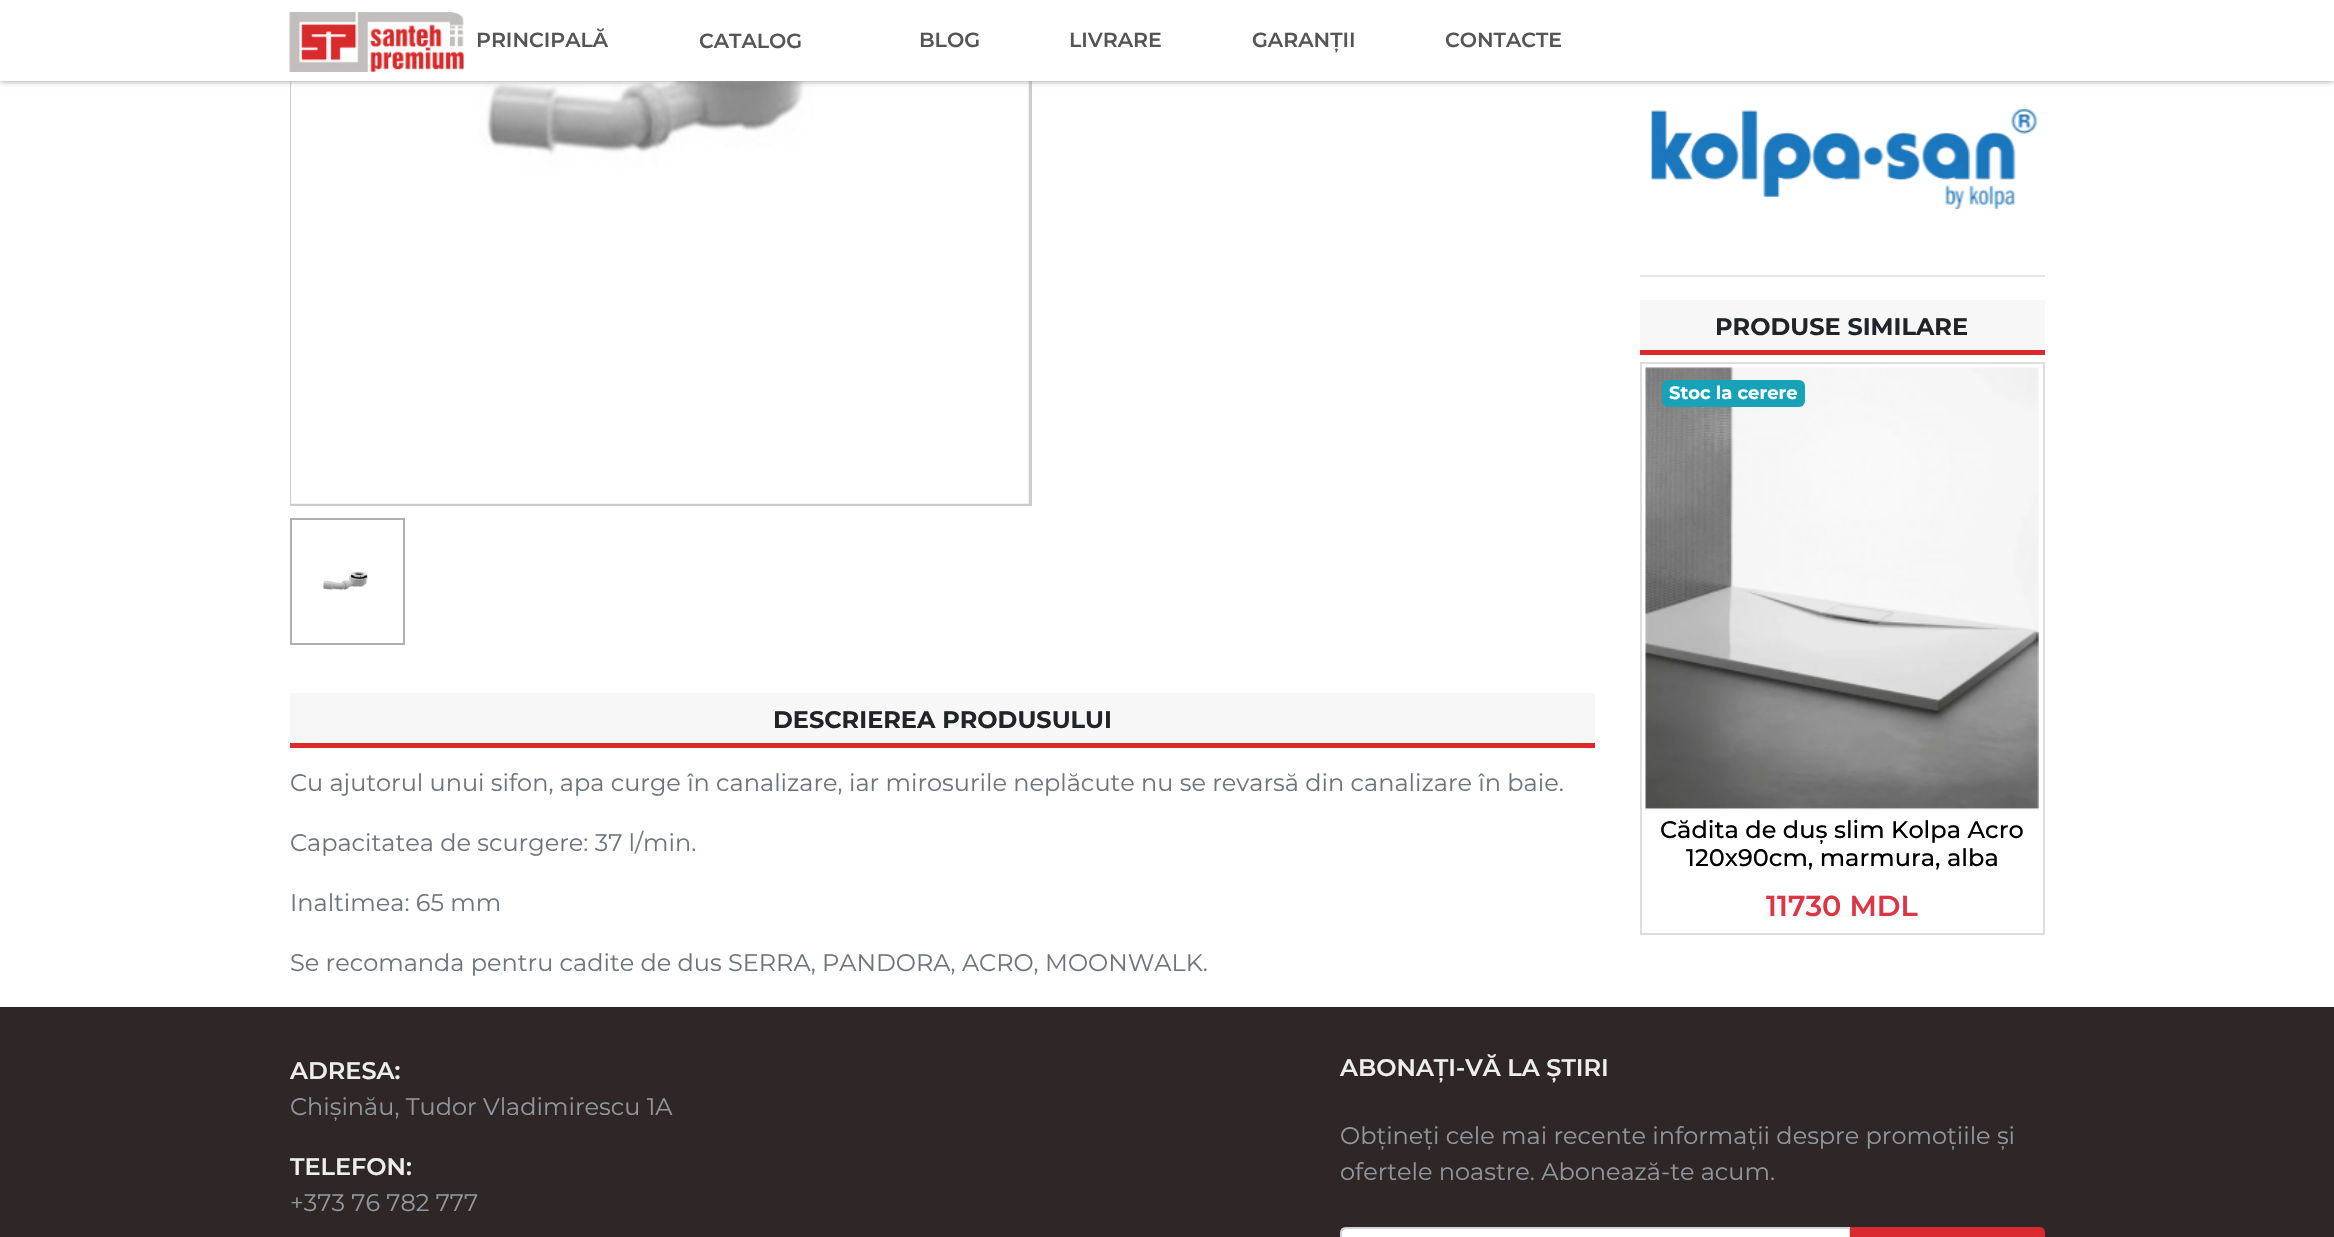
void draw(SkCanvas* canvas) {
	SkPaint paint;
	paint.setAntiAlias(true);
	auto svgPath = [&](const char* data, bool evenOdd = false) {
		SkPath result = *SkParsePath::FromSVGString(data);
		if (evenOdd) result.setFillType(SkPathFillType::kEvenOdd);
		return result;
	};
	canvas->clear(0xffffffff);
	paint.setColor(0xffcccccc);
	canvas->drawRect(SkRect::MakeXYWH(290, 81, 742, 425), paint);
	canvas->drawImageRect(SkImages::DeferredFromEncodedData(SkData::MakeFromFileName("img2.png")), SkRect::MakeXYWH(291, 81, 738, 423), SkSamplingOptions());
	paint.setColor(0xff90969a);
	paint.setMaskFilter(SkMaskFilter::MakeBlur(kNormal_SkBlurStyle, 3));
	canvas->drawRect(SkRect::MakeXYWH(0, 0, 2334, 81), paint);
	paint.setMaskFilter(nullptr);
	paint.setColor(0xffffffff);
	canvas->drawRect(SkRect::MakeXYWH(0, 0, 2334, 81), paint);
	canvas->drawImageRect(SkImages::DeferredFromEncodedData(SkData::MakeFromFileName("img1.png")), SkRect::MakeXYWH(289, 12, 175, 60), SkSamplingOptions());
	SkFont f1(fontMgr->matchFamilyStyle("Montserrat", SkFontStyle(600, SkFontStyle::kNormal_Width, SkFontStyle::kUpright_Slant)), 20.5);
	f1.setSubpixel(true);
	paint.setColor(0xff555555);
	canvas->drawString("PRINCIPALĂ", 476, 47, f1, paint);
	canvas->drawString("CATALOG", 699, 48, f1, paint);
	canvas->drawString("BLOG", 919, 47, f1, paint);
	canvas->drawString("LIVRARE", 1069, 47, f1, paint);
	canvas->drawString("GARANȚII", 1252, 47, f1, paint);
	canvas->drawString("CONTACTE", 1445, 47, f1, paint);
	paint.setStroke(true);
	paint.setStrokeWidth(2);
	paint.setColor(0xffafafaf);
	canvas->drawRect(SkRect::MakeXYWH(291, 519, 113, 125), paint);
	canvas->drawImageRect(SkImages::DeferredFromEncodedData(SkData::MakeFromFileName("img3.png")), SkRect::MakeXYWH(323, 571, 45, 19), SkSamplingOptions());
	paint.setStroke(false);
	paint.setColor(0xfff7f7f7);
	canvas->drawRect(SkRect::MakeXYWH(290, 693, 1305, 50), paint);
	paint.setColor(0xffd92b2d);
	canvas->drawRect(SkRect::MakeXYWH(290, 743, 1305, 5), paint);
	SkFont f2(fontMgr->matchFamilyStyle("Montserrat", SkFontStyle::Bold()), 24);
	f2.setSubpixel(true);
	paint.setColor(0xff212529);
	canvas->drawString("DESCRIEREA PRODUSULUI", 773, 728, f2, paint);
	SkFont f3(fontMgr->matchFamilyStyle("Montserrat", SkFontStyle::Normal()), 24);
	f3.setSubpixel(true);
	paint.setColor(0xff6c757d);
	canvas->drawString("Cu ajutorul unui sifon, apa curge în canalizare, iar mirosurile neplăcute nu se revarsă din canalizare în baie.", 290, 791, f3, paint);
	canvas->drawString("Capacitatea de scurgere: 37 l/min.", 290, 851, f3, paint);
	canvas->drawString("Inaltimea: 65 mm", 290, 911, f3, paint);
	canvas->drawString("Se recomanda pentru cadite de dus SERRA, PANDORA, ACRO, MOONWALK.", 290, 971, f3, paint);
	canvas->drawImageRect(SkImages::DeferredFromEncodedData(SkData::MakeFromFileName("img4.png")), SkRect::MakeXYWH(1651, 108, 387, 102), SkSamplingOptions());
	paint.setColor(0xffe6e6e6);
	canvas->drawRect(SkRect::MakeXYWH(1640, 275, 405, 2), paint);
	paint.setColor(0xfff7f7f7);
	canvas->drawRect(SkRect::MakeXYWH(1640, 300, 405, 50), paint);
	paint.setColor(0xffd92b2d);
	canvas->drawRect(SkRect::MakeXYWH(1640, 350, 405, 5), paint);
	paint.setColor(0xff212529);
	canvas->drawString("PRODUSE SIMILARE", 1715, 335, f2, paint);
	paint.setStroke(true);
	paint.setColor(0xffdddddd);
	canvas->drawRect(SkRect::MakeXYWH(1641, 363, 403, 571), paint);
	canvas->drawImageRect(SkImages::DeferredFromEncodedData(SkData::MakeFromFileName("img5.png")), SkRect::MakeXYWH(1645, 367, 394, 443), SkSamplingOptions());
	paint.setStroke(false);
	paint.setColor(0xff17a2b8);
	canvas->drawRoundRect(SkRect::MakeXYWH(1662, 380, 143, 27), 6, 6, paint);
	SkFont f4(fontMgr->matchFamilyStyle("Montserrat", SkFontStyle::Bold()), 18);
	f4.setSubpixel(true);
	paint.setColor(0xffffffff);
	canvas->drawString("Stoc la cerere", 1669, 399, f4, paint);
	SkFont f5(fontMgr->matchFamilyStyle("Montserrat", SkFontStyle(500, SkFontStyle::kNormal_Width, SkFontStyle::kUpright_Slant)), 24);
	f5.setSubpixel(true);
	paint.setColor(0xff000000);
	canvas->drawString("Cădita de duș slim Kolpa Acro", 1660, 838, f5, paint);
	canvas->drawString("120x90cm, marmura, alba", 1686, 866, f5, paint);
	SkFont f6(fontMgr->matchFamilyStyle("Montserrat", SkFontStyle(600, SkFontStyle::kNormal_Width, SkFontStyle::kUpright_Slant)), 28.75);
	f6.setSubpixel(true);
	paint.setColor(0xffdc3545);
	canvas->drawString("11730 MDL", 1766, 916, f6, paint);
	paint.setColor(0xff2f2727);
	canvas->drawRect(SkRect::MakeXYWH(0, 1007, 2334, 230), paint);
	SkFont f7(fontMgr->matchFamilyStyle("Montserrat", SkFontStyle(600, SkFontStyle::kNormal_Width, SkFontStyle::kUpright_Slant)), 24);
	f7.setSubpixel(true);
	paint.setColor(0xffeeeeee);
	canvas->drawString("ADRESA:", 290, 1079, f7, paint);
	paint.setColor(0xff90969a);
	canvas->drawString("Chișinău, Tudor Vladimirescu 1A", 290, 1115, f3, paint);
	paint.setColor(0xffeeeeee);
	canvas->drawString("TELEFON:", 290, 1175, f7, paint);
	paint.setColor(0xff90969a);
	canvas->drawString("+373 76 782 777", 290, 1211, f3, paint);
	paint.setColor(0xffeeeeee);
	canvas->drawString("ABONAȚI-VĂ LA ȘTIRI", 1340, 1076, f7, paint);
	paint.setColor(0xff90969a);
	canvas->drawString("Obțineți cele mai recente informații despre promoțiile și", 1340, 1144, f3, paint);
	canvas->drawString("ofertele noastre. Abonează-te acum.", 1340, 1180, f3, paint);
	paint.setColor(0xffffffff);
	canvas->drawPath(svgPath("M1346 1229H1850V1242H1346C1343 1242 1341 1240 1341 1237V1234C1341 1231 1343 1229 1346 1229Z"), paint);
	paint.setStroke(true);
	paint.setColor(0xffced4da);
	canvas->drawPath(svgPath("M1346 1228H1850V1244H1346C1343 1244 1341 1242 1341 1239V1233C1341 1230 1343 1228 1346 1228Z"), paint);
	paint.setStroke(false);
	paint.setColor(0xffd92a2e);
	canvas->drawPath(svgPath("M1851 1228H2039C2042 1228 2044 1230 2044 1233V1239C2044 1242 2042 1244 2039 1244H1851Z"), paint);
	paint.setStroke(true);
	canvas->drawPath(svgPath("M1851 1228H2039C2042 1228 2044 1230 2044 1233V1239C2044 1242 2042 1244 2039 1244H1851Z"), paint);
}
